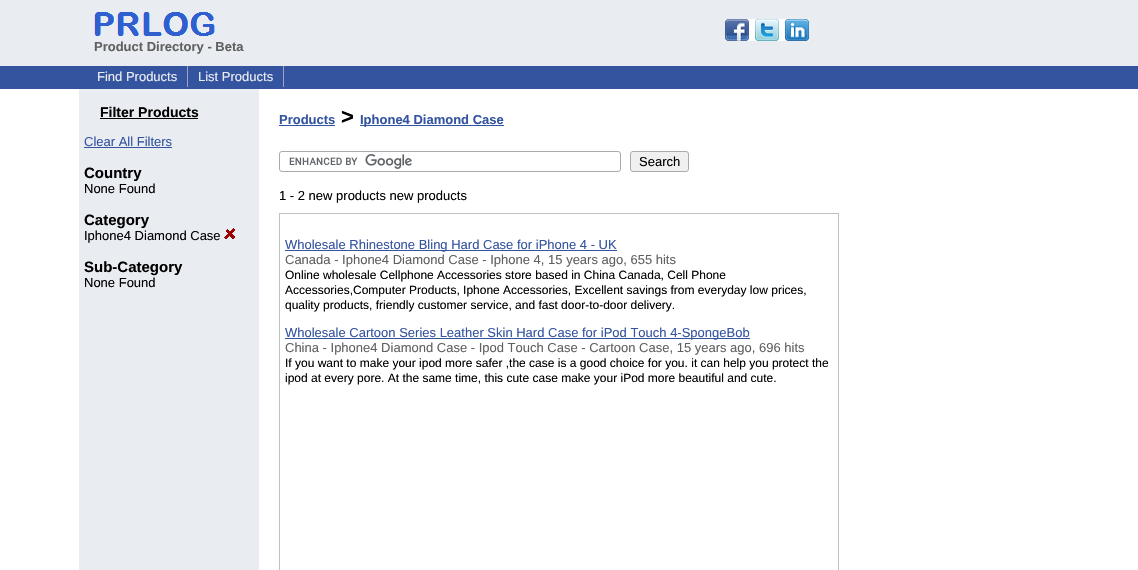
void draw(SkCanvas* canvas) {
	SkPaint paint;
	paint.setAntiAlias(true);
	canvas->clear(0xffffffff);
	paint.setColor(0xffe9edf2);
	canvas->drawRect(SkRect::MakeXYWH(0, 0, 1138, 66), paint);
	canvas->drawImageRect(SkImages::DeferredFromEncodedData(SkData::MakeFromFileName("img1.png")), SkRect::MakeXYWH(725, 19, 84, 22), SkSamplingOptions());
	canvas->drawImageRect(SkImages::DeferredFromEncodedData(SkData::MakeFromFileName("img2.png")), SkRect::MakeXYWH(94, 12, 121, 24), SkSamplingOptions());
	SkFont f1(fontMgr->matchFamilyStyle("Liberation Sans", SkFontStyle::Bold()), 13);
	f1.setSubpixel(true);
	paint.setColor(0xff606060);
	canvas->drawString("Product Directory - Beta", 94, 51, f1, paint);
	paint.setColor(0xff3454a0);
	canvas->drawRect(SkRect::MakeXYWH(0, 66, 1138, 23), paint);
	paint.setColor(0xffa0a0c0);
	canvas->drawRect(SkRect::MakeXYWH(187, 66, 1, 21), paint);
	SkFont f2(fontMgr->matchFamilyStyle("Liberation Sans", SkFontStyle::Normal()), 13);
	f2.setSubpixel(true);
	paint.setColor(0xffe9edf2);
	canvas->drawString("Find Products", 97, 81, f2, paint);
	paint.setColor(0xffa0a0c0);
	canvas->drawRect(SkRect::MakeXYWH(283, 66, 1, 21), paint);
	paint.setColor(0xffe9edf2);
	canvas->drawString("List Products", 198, 81, f2, paint);
	canvas->drawRect(SkRect::MakeXYWH(79, 89, 180, 481), paint);
	SkFont f3(fontMgr->matchFamilyStyle("Liberation Sans", SkFontStyle::Bold()), 14);
	f3.setSubpixel(true);
	paint.setColor(0xff000000);
	canvas->drawString("Filter Products", 100, 117, f3, paint);
	canvas->drawRect(SkRect::MakeXYWH(100, 118, 98, 1), paint);
	paint.setColor(0xff3454a0);
	canvas->drawString("Clear All Filters", 84, 146, f2, paint);
	canvas->drawRect(SkRect::MakeXYWH(84, 147, 88, 1), paint);
	SkFont f4(fontMgr->matchFamilyStyle("Liberation Sans", SkFontStyle::Bold()), 15);
	f4.setSubpixel(true);
	paint.setColor(0xff000000);
	canvas->drawString("Country", 84, 178, f4, paint);
	canvas->drawString("None Found", 84, 193, f2, paint);
	canvas->drawString("Category", 84, 225, f4, paint);
	canvas->drawString("Iphone4 Diamond Case", 84, 240, f2, paint);
	canvas->drawImageRect(SkImages::DeferredFromEncodedData(SkData::MakeFromFileName("img3.png")), SkRect::MakeXYWH(224, 228, 11, 11), SkSamplingOptions());
	canvas->drawString("Sub-Category", 84, 272, f4, paint);
	canvas->drawString("None Found", 84, 287, f2, paint);
	paint.setColor(0xff3454a0);
	canvas->drawString("Products", 279, 124, f1, paint);
	canvas->drawRect(SkRect::MakeXYWH(279, 125, 56, 1), paint);
	SkFont f5(fontMgr->matchFamilyStyle("Liberation Sans", SkFontStyle::Bold()), 22);
	f5.setSubpixel(true);
	paint.setColor(0xff000000);
	canvas->drawString(">", 341, 124, f5, paint);
	paint.setColor(0xff3454a0);
	canvas->drawRect(SkRect::MakeXYWH(360, 125, 144, 1), paint);
	canvas->drawString("Iphone4 Diamond Case", 360, 124, f1, paint);
	canvas->drawImageRect(SkImages::DeferredFromEncodedData(SkData::MakeFromFileName("img4.png")), SkRect::MakeXYWH(289, 154, 123, 15), SkSamplingOptions());
	paint.setStroke(true);
	paint.setStrokeWidth(1);
	paint.setColor(0xffaaaaaa);
	canvas->drawRoundRect(SkRect::MakeXYWH(279.5, 151.5, 341, 20), 2.5, 2.5, paint);
	paint.setStroke(false);
	paint.setColor(0xfff0f0f0);
	canvas->drawRoundRect(SkRect::MakeXYWH(630.5, 151.5, 58, 20), 2.5, 2.5, paint);
	paint.setStroke(true);
	paint.setColor(0xffaaaaaa);
	canvas->drawRoundRect(SkRect::MakeXYWH(630.5, 151.5, 58, 20), 2.5, 2.5, paint);
	paint.setStroke(false);
	paint.setColor(0xff000000);
	canvas->drawString("Search", 639, 166, f2, paint);
	canvas->drawString("1 - 2 new products new products", 279, 200, f2, paint);
	paint.setStroke(true);
	paint.setColor(0xffc0c0c0);
	canvas->drawRect(SkRect::MakeXYWH(279.5, 213.5, 559, 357), paint);
	paint.setStroke(false);
	paint.setColor(0xff3454a0);
	canvas->drawRect(SkRect::MakeXYWH(285, 250, 332, 1), paint);
	canvas->drawString("Wholesale Rhinestone Bling Hard Case for iPhone 4 - UK", 285, 249, f2, paint);
	paint.setColor(0xff606060);
	canvas->drawString("Canada - Iphone4 Diamond Case - Iphone 4, 15 years ago, 655 hits", 285, 264, f2, paint);
	SkFont f6(fontMgr->matchFamilyStyle("Liberation Sans", SkFontStyle::Normal()), 12);
	f6.setSubpixel(true);
	paint.setColor(0xff000000);
	canvas->drawString("Online wholesale Cellphone Accessories store based in China Canada, Cell Phone", 285, 279, f6, paint);
	canvas->drawString("Accessories,Computer Products, Iphone Accessories, Excellent savings from everyday low prices,", 285, 294, f6, paint);
	canvas->drawString("quality products, friendly customer service, and fast door-to-door delivery.", 285, 309, f6, paint);
	paint.setColor(0xff3454a0);
	canvas->drawRect(SkRect::MakeXYWH(285, 338, 465, 1), paint);
	canvas->drawString("Wholesale Cartoon Series Leather Skin Hard Case for iPod Touch 4-SpongeBob", 285, 337, f2, paint);
	paint.setColor(0xff606060);
	canvas->drawString("China - Iphone4 Diamond Case - Ipod Touch Case - Cartoon Case, 15 years ago, 696 hits", 285, 352, f2, paint);
	paint.setColor(0xff000000);
	canvas->drawString("If you want to make your ipod more safer ,the case is a good choice for you. it can help you protect the", 285, 367, f6, paint);
	canvas->drawString("ipod at every pore. At the same time, this cute case make your iPod more beautiful and cute.", 285, 382, f6, paint);
}
